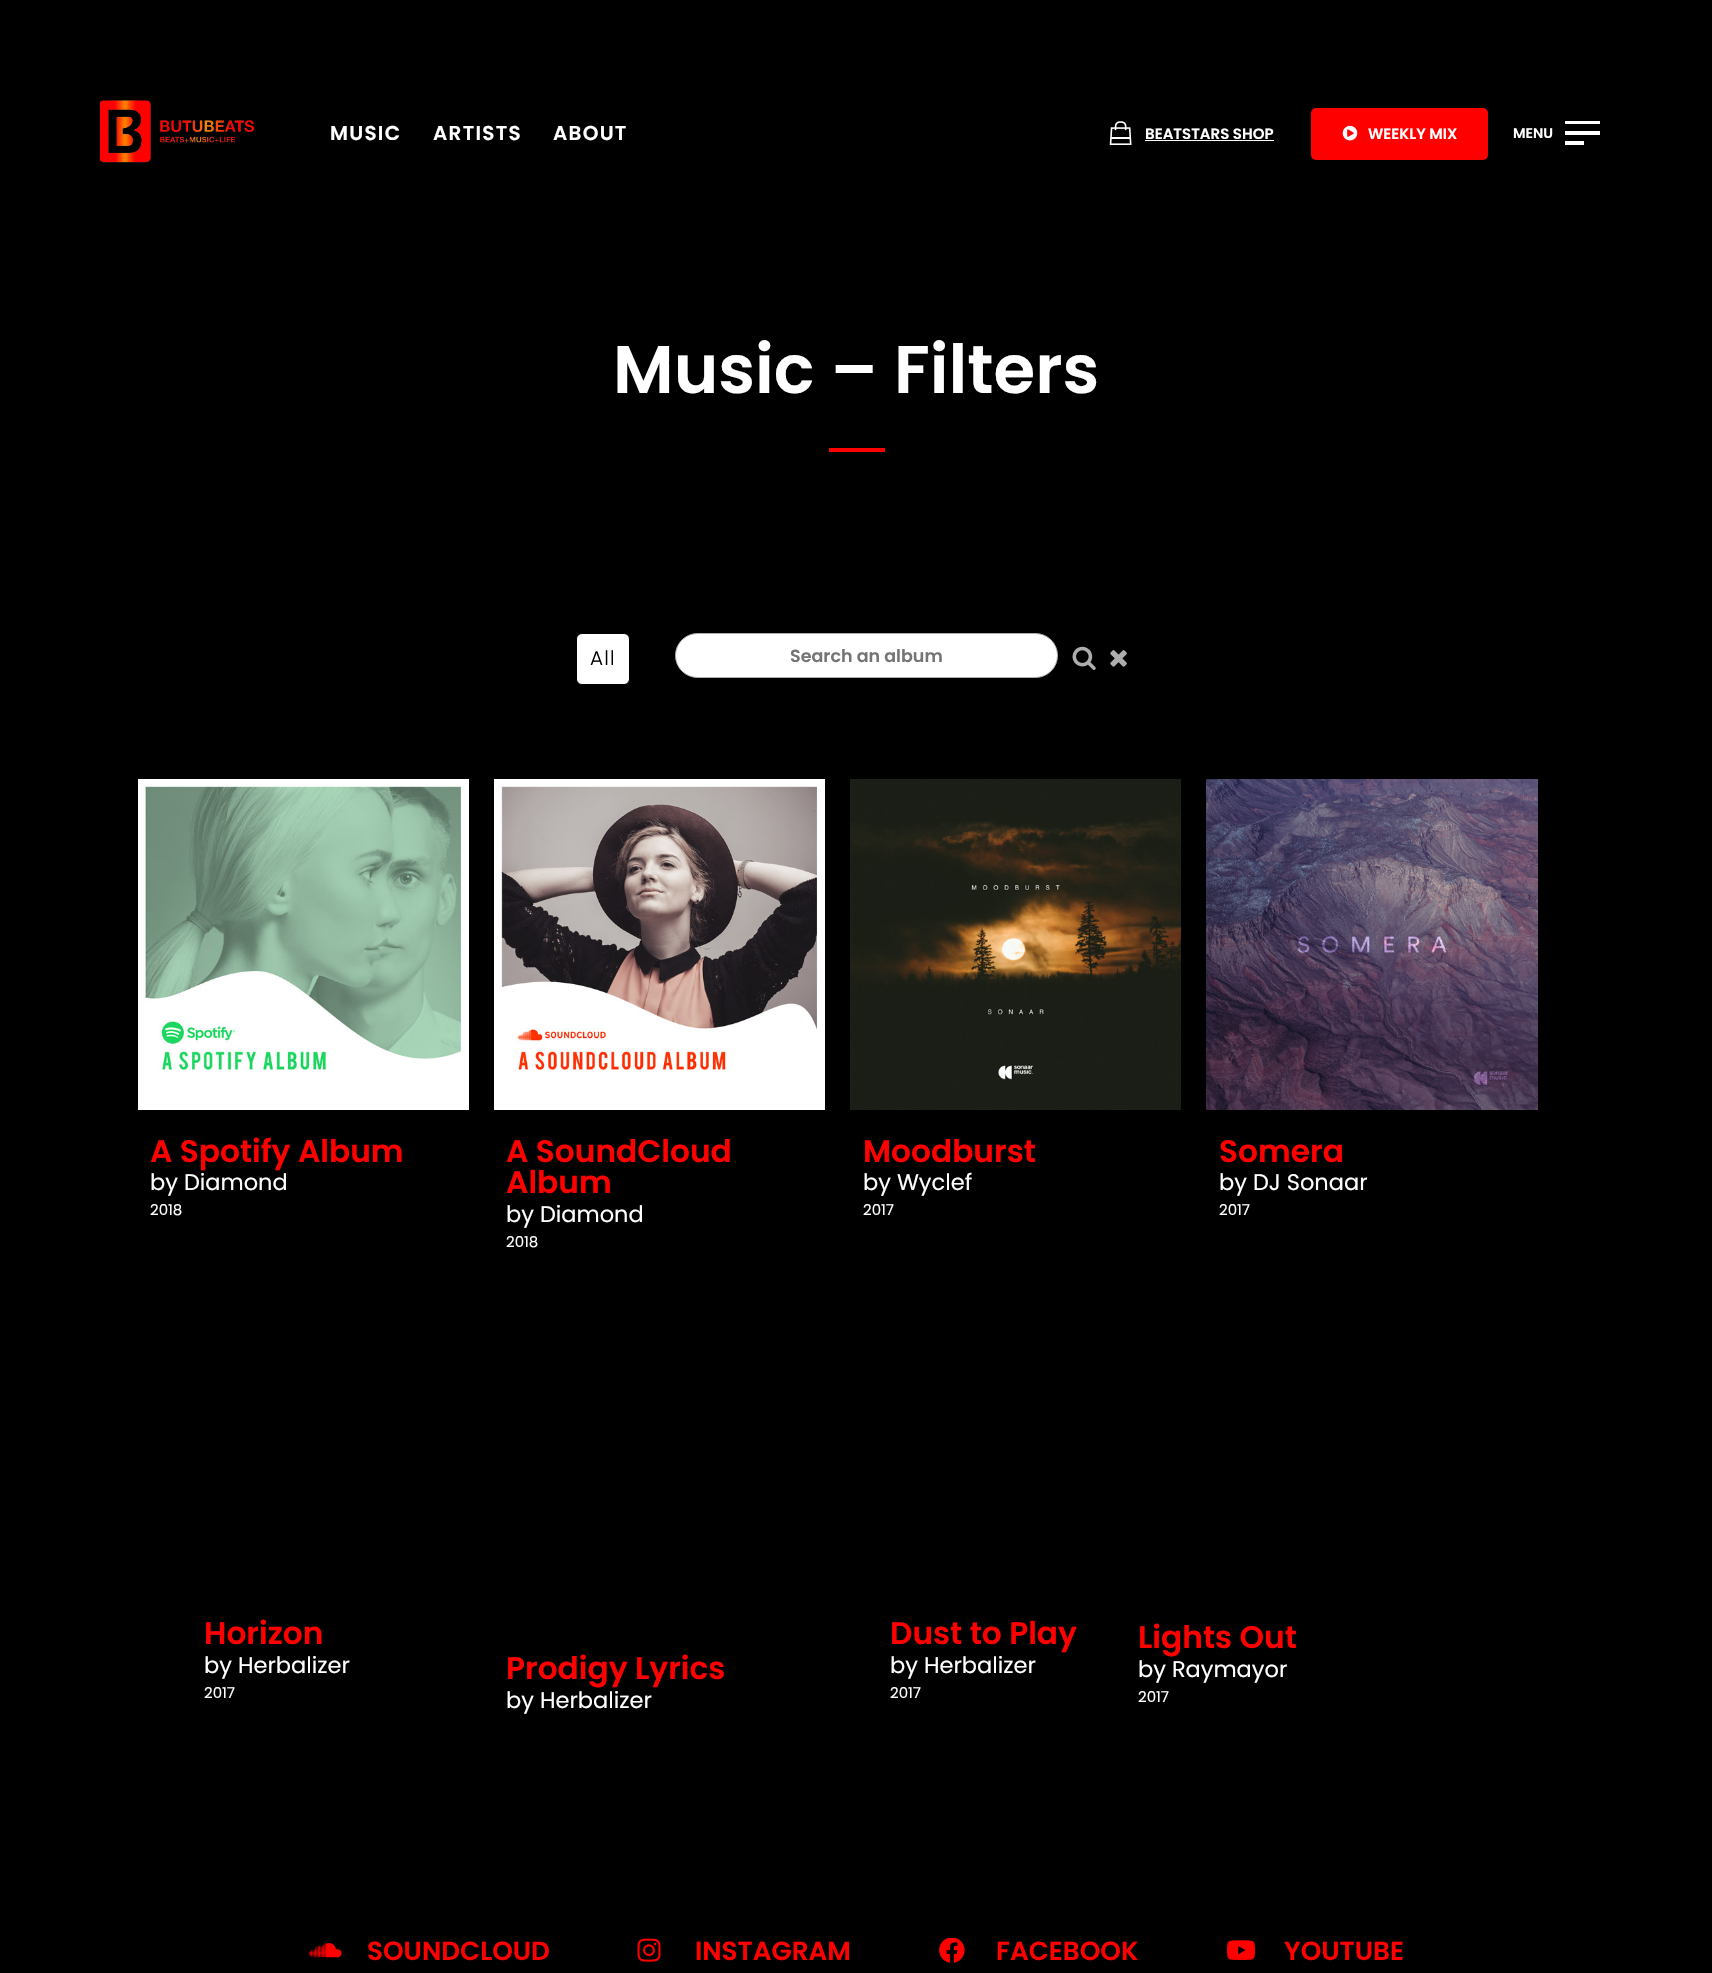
void draw(SkCanvas* canvas) {
	SkPaint paint;
	paint.setAntiAlias(true);
	auto spacedText = [&](const char* s, float x, float y, const SkFont& font, const SkPaint& ink, float letter, float word) {
		std::vector<SkGlyphID> glyphs(font.countText(s, strlen(s), SkTextEncoding::kUTF8));
		std::vector<float> xs(glyphs.size());
		font.textToGlyphs(s, strlen(s), SkTextEncoding::kUTF8, glyphs);
		font.getXPos(glyphs, xs, x);
		float extra = 0;
		for (size_t i = 0; i < glyphs.size(); i++) {
			xs[i] += extra;
			extra += letter + word * (glyphs[i] == font.unicharToGlyph(' '));
		}
		canvas->drawTextBlob(SkTextBlob::MakeFromPosHGlyphs(glyphs, xs, y, font), 0, 0, ink);
	};
	canvas->clear(0xff000000);
	canvas->drawImageRect(SkImages::DeferredFromEncodedData(SkData::MakeFromFileName("img1.png")), SkRect::MakeXYWH(100, 100, 155, 63), SkSamplingOptions());
	SkFont f1(fontMgr->matchFamilyStyle("Poppins", SkFontStyle(600, SkFontStyle::kNormal_Width, SkFontStyle::kUpright_Slant)), 20);
	f1.setSubpixel(true);
	paint.setColor(0xffffffff);
	spacedText("MUSIC", 330, 140, f1, paint, 1.25, 0);
	spacedText("ARTISTS", 433, 140, f1, paint, 1.25, 0);
	spacedText("ABOUT", 553, 140, f1, paint, 1.25, 0);
	canvas->drawImageRect(SkImages::DeferredFromEncodedData(SkData::MakeFromFileName("img2.png")), SkRect::MakeXYWH(1109, 121, 23, 24), SkSamplingOptions());
	SkFont f2(fontMgr->matchFamilyStyle("Poppins", SkFontStyle(600, SkFontStyle::kNormal_Width, SkFontStyle::kUpright_Slant)), 15);
	f2.setSubpixel(true);
	canvas->drawString("BEATSTARS SHOP", 1145, 139, f2, paint);
	canvas->drawRect(SkRect::MakeXYWH(1145, 140, 129, 1), paint);
	paint.setColor(0xffff0000);
	canvas->drawRoundRect(SkRect::MakeXYWH(1311, 108, 177, 52), 5, 5, paint);
	canvas->drawImageRect(SkImages::DeferredFromEncodedData(SkData::MakeFromFileName("img3.png")), SkRect::MakeXYWH(1342, 125, 16, 16), SkSamplingOptions());
	paint.setColor(0xffffffff);
	canvas->drawString("WEEKLY MIX", 1368, 139, f2, paint);
	SkFont f3(fontMgr->matchFamilyStyle("Poppins", SkFontStyle(600, SkFontStyle::kNormal_Width, SkFontStyle::kUpright_Slant)), 14);
	f3.setSubpixel(true);
	canvas->drawString("MENU", 1513, 138, f3, paint);
	canvas->drawRect(SkRect::MakeXYWH(1565, 131, 35, 4), paint);
	canvas->drawRect(SkRect::MakeXYWH(1565, 121, 35, 3), paint);
	canvas->drawRect(SkRect::MakeXYWH(1565, 141, 19, 4), paint);
	SkFont f4(fontMgr->matchFamilyStyle("Poppins", SkFontStyle(600, SkFontStyle::kNormal_Width, SkFontStyle::kUpright_Slant)), 67.5);
	f4.setSubpixel(true);
	canvas->drawString("Music – Filters", 613, 393, f4, paint);
	paint.setColor(0xffff0000);
	canvas->drawRect(SkRect::MakeXYWH(829, 448, 56, 4), paint);
	paint.setColor(0xffffffff);
	canvas->drawRoundRect(SkRect::MakeXYWH(576.5, 633.5, 53, 51), 5.5, 5.5, paint);
	paint.setStroke(true);
	paint.setStrokeWidth(1);
	paint.setColor(0xff000000);
	canvas->drawRoundRect(SkRect::MakeXYWH(576.5, 633.5, 53, 51), 5.5, 5.5, paint);
	SkFont f5(fontMgr->matchFamilyStyle("Poppins", SkFontStyle(300, SkFontStyle::kNormal_Width, SkFontStyle::kUpright_Slant)), 20);
	f5.setSubpixel(true);
	paint.setStroke(false);
	spacedText("All", 590, 665, f5, paint, 1.25, 0);
	paint.setColor(0xffffffff);
	canvas->drawRoundRect(SkRect::MakeXYWH(675.5, 633.5, 382, 44), 22, 22, paint);
	paint.setStroke(true);
	paint.setColor(0xffadadad);
	canvas->drawRoundRect(SkRect::MakeXYWH(675.5, 633.5, 382, 44), 22, 22, paint);
	SkFont f6(fontMgr->matchFamilyStyle("Poppins", SkFontStyle(600, SkFontStyle::kNormal_Width, SkFontStyle::kUpright_Slant)), 17.5);
	f6.setSubpixel(true);
	paint.setStroke(false);
	paint.setColor(0xff757575);
	canvas->drawString("Search an album", 790, 662, f6, paint);
	canvas->drawImageRect(SkImages::DeferredFromEncodedData(SkData::MakeFromFileName("img4.png")), SkRect::MakeXYWH(1072, 646, 24, 24), SkSamplingOptions());
	canvas->drawImageRect(SkImages::DeferredFromEncodedData(SkData::MakeFromFileName("img5.png")), SkRect::MakeXYWH(1110, 650, 17, 17), SkSamplingOptions());
	canvas->drawImageRect(SkImages::DeferredFromEncodedData(SkData::MakeFromFileName("img6.png")), SkRect::MakeXYWH(138, 779, 331, 331), SkSamplingOptions());
	SkFont f7(fontMgr->matchFamilyStyle("Poppins", SkFontStyle(600, SkFontStyle::kNormal_Width, SkFontStyle::kUpright_Slant)), 31.25);
	f7.setSubpixel(true);
	paint.setColor(0xffff0000);
	canvas->drawString("A Spotify Album", 150, 1162, f7, paint);
	SkFont f8(fontMgr->matchFamilyStyle("Poppins", SkFontStyle::Normal()), 22.5);
	f8.setSubpixel(true);
	paint.setColor(0xffffffff);
	canvas->drawString("by Diamond", 150, 1190, f8, paint);
	SkFont f9(fontMgr->matchFamilyStyle("Poppins", SkFontStyle::Normal()), 15);
	f9.setSubpixel(true);
	canvas->drawString("2018", 150, 1215, f9, paint);
	canvas->drawImageRect(SkImages::DeferredFromEncodedData(SkData::MakeFromFileName("img7.png")), SkRect::MakeXYWH(494, 779, 331, 331), SkSamplingOptions());
	paint.setColor(0xffff0000);
	canvas->drawString("A SoundCloud", 506, 1162, f7, paint);
	canvas->drawString("Album", 506, 1193, f7, paint);
	paint.setColor(0xffffffff);
	canvas->drawString("by Diamond", 506, 1222, f8, paint);
	canvas->drawString("2018", 506, 1247, f9, paint);
	canvas->drawImageRect(SkImages::DeferredFromEncodedData(SkData::MakeFromFileName("img8.png")), SkRect::MakeXYWH(850, 779, 331, 331), SkSamplingOptions());
	paint.setColor(0xffff0000);
	canvas->drawString("Moodburst", 863, 1162, f7, paint);
	paint.setColor(0xffffffff);
	canvas->drawString("by Wyclef", 863, 1190, f8, paint);
	canvas->drawString("2017", 863, 1215, f9, paint);
	canvas->drawImageRect(SkImages::DeferredFromEncodedData(SkData::MakeFromFileName("img9.png")), SkRect::MakeXYWH(1206, 779, 332, 331), SkSamplingOptions());
	paint.setColor(0xffff0000);
	canvas->drawString("Somera", 1219, 1162, f7, paint);
	paint.setColor(0xffffffff);
	canvas->drawString("by DJ Sonaar", 1219, 1190, f8, paint);
	canvas->drawString("2017", 1219, 1215, f9, paint);
	paint.setColor(0xffff0000);
	canvas->drawString("Horizon", 204, 1644, f7, paint);
	paint.setColor(0xffffffff);
	canvas->drawString("by Herbalizer", 204, 1673, f8, paint);
	canvas->drawString("2017", 204, 1698, f9, paint);
	paint.setColor(0xffff0000);
	canvas->drawString("Prodigy Lyrics", 506, 1679, f7, paint);
	paint.setColor(0xffffffff);
	canvas->drawString("by Herbalizer", 506, 1708, f8, paint);
	paint.setColor(0xffff0000);
	canvas->drawString("Dust to Play", 890, 1644, f7, paint);
	paint.setColor(0xffffffff);
	canvas->drawString("by Herbalizer", 890, 1673, f8, paint);
	canvas->drawString("2017", 890, 1698, f9, paint);
	paint.setColor(0xffff0000);
	canvas->drawString("Lights Out", 1138, 1648, f7, paint);
	paint.setColor(0xffffffff);
	canvas->drawString("by Raymayor", 1138, 1677, f8, paint);
	canvas->drawString("2017", 1138, 1702, f9, paint);
	canvas->drawImageRect(SkImages::DeferredFromEncodedData(SkData::MakeFromFileName("img10.png")), SkRect::MakeXYWH(308, 1943, 34, 15), SkSamplingOptions());
	SkFont f10(fontMgr->matchFamilyStyle("Poppins", SkFontStyle(600, SkFontStyle::kNormal_Width, SkFontStyle::kUpright_Slant)), 26.25);
	f10.setSubpixel(true);
	paint.setColor(0xffff0000);
	canvas->drawString("SOUNDCLOUD", 367, 1960, f10, paint);
	canvas->drawImageRect(SkImages::DeferredFromEncodedData(SkData::MakeFromFileName("img11.png")), SkRect::MakeXYWH(637, 1938, 24, 24), SkSamplingOptions());
	canvas->drawString("INSTAGRAM", 695, 1960, f10, paint);
	canvas->drawImageRect(SkImages::DeferredFromEncodedData(SkData::MakeFromFileName("img12.png")), SkRect::MakeXYWH(939, 1938, 26, 25), SkSamplingOptions());
	canvas->drawString("FACEBOOK", 996, 1960, f10, paint);
	canvas->drawImageRect(SkImages::DeferredFromEncodedData(SkData::MakeFromFileName("img13.png")), SkRect::MakeXYWH(1227, 1940, 28, 20), SkSamplingOptions());
	canvas->drawString("YOUTUBE", 1284, 1960, f10, paint);
}
